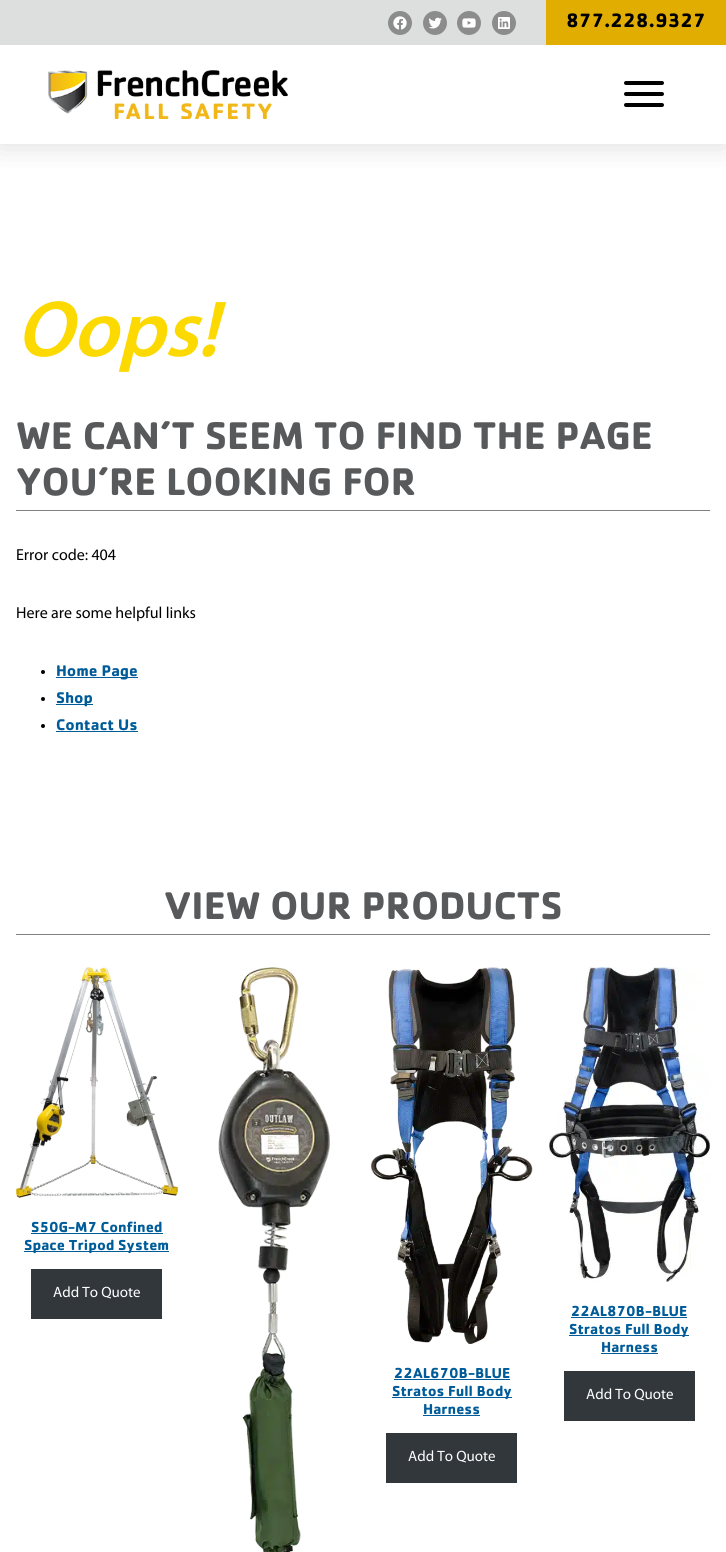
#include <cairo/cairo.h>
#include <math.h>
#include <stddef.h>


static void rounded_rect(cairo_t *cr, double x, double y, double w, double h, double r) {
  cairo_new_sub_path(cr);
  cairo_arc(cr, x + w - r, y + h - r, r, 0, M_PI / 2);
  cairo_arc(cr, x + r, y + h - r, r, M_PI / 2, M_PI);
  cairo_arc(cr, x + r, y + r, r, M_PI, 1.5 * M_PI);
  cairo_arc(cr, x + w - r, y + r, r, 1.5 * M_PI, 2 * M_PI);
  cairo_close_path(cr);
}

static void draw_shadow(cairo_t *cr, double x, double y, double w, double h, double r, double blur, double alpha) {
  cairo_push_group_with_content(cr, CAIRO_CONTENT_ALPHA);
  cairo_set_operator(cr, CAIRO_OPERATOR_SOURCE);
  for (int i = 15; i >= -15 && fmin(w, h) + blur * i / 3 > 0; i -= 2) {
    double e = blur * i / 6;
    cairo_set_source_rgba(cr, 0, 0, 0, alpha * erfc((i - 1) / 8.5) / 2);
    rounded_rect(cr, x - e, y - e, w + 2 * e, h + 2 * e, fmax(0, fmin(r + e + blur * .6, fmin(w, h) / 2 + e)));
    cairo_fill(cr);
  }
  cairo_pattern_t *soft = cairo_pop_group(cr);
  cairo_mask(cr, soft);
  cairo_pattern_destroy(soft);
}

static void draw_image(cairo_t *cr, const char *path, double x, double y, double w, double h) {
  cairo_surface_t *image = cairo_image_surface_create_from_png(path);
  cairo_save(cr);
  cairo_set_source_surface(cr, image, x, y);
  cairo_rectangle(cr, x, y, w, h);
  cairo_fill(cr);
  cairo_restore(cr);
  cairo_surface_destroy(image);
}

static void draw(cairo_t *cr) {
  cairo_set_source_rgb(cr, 1, 1, 1);
  cairo_paint(cr);
  cairo_save(cr);
  cairo_rectangle(cr, 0, 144, 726, 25);
  cairo_clip(cr);
  cairo_set_source_rgb(cr, 161 / 255.0, 161 / 255.0, 161 / 255.0);
  draw_shadow(cr, 0, 0, 726, 144, 0, 15, 0.4);
  cairo_restore(cr);
  cairo_set_source_rgb(cr, 221 / 255.0, 223 / 255.0, 223 / 255.0);
  cairo_rectangle(cr, 0, 0, 546, 45);
  cairo_fill(cr);
  cairo_set_source_rgb(cr, 140 / 255.0, 140 / 255.0, 140 / 255.0);
  cairo_arc(cr, 400, 23, 12, 0, 2 * M_PI);
  cairo_fill(cr);
  draw_image(cr, "images/1.png", 393, 16, 14, 14);
  cairo_arc(cr, 435, 23, 12, 0, 2 * M_PI);
  cairo_fill(cr);
  draw_image(cr, "images/2.png", 428, 17, 14, 12);
  cairo_arc(cr, 469, 23, 12, 0, 2 * M_PI);
  cairo_fill(cr);
  draw_image(cr, "images/3.png", 462, 18, 14, 10);
  cairo_arc(cr, 504, 23, 12, 0, 2 * M_PI);
  cairo_fill(cr);
  draw_image(cr, "images/4.png", 498, 17, 12, 12);
  cairo_set_source_rgb(cr, 224 / 255.0, 173 / 255.0, 0);
  cairo_rectangle(cr, 546, 0, 180, 45);
  cairo_fill(cr);
  draw_image(cr, "images/5.png", 48, 70, 240, 49);
  cairo_set_source_rgb(cr, 0, 0, 0);
  rounded_rect(cr, 624, 81, 40, 4, 2);
  cairo_fill(cr);
  rounded_rect(cr, 624, 92, 40, 4, 2);
  cairo_fill(cr);
  rounded_rect(cr, 624, 103, 40, 4, 2);
  cairo_fill(cr);
  cairo_set_source_rgb(cr, 128 / 255.0, 128 / 255.0, 128 / 255.0);
  cairo_rectangle(cr, 16, 510, 694, 1);
  cairo_fill(cr);
  cairo_set_source_rgb(cr, 0, 0, 0);
  cairo_arc(cr, 43, 672, 2, 0, 2 * M_PI);
  cairo_fill(cr);
  cairo_set_source_rgb(cr, 0, 92 / 255.0, 153 / 255.0);
  cairo_rectangle(cr, 56, 677, 82, 1);
  cairo_fill(cr);
  cairo_set_source_rgb(cr, 0, 0, 0);
  cairo_arc(cr, 43, 699, 2, 0, 2 * M_PI);
  cairo_fill(cr);
  cairo_set_source_rgb(cr, 0, 92 / 255.0, 153 / 255.0);
  cairo_rectangle(cr, 56, 704, 37, 1);
  cairo_fill(cr);
  cairo_set_source_rgb(cr, 0, 0, 0);
  cairo_arc(cr, 43, 726, 2, 0, 2 * M_PI);
  cairo_fill(cr);
  cairo_set_source_rgb(cr, 0, 92 / 255.0, 153 / 255.0);
  cairo_rectangle(cr, 56, 731, 82, 1);
  cairo_fill(cr);
  cairo_set_source_rgb(cr, 128 / 255.0, 128 / 255.0, 128 / 255.0);
  cairo_rectangle(cr, 16, 934, 694, 1);
  cairo_fill(cr);
  draw_image(cr, "images/6.png", 16, 967, 162, 231);
  cairo_set_source_rgb(cr, 0, 92 / 255.0, 153 / 255.0);
  cairo_rectangle(cr, 31, 1233, 132, 1);
  cairo_fill(cr);
  cairo_rectangle(cr, 24, 1251, 145, 1);
  cairo_fill(cr);
  cairo_set_source_rgb(cr, 50 / 255.0, 55 / 255.0, 60 / 255.0);
  cairo_rectangle(cr, 31, 1269, 131, 50);
  cairo_fill(cr);
  draw_image(cr, "images/7.png", 218, 967, 112, 585);
  draw_image(cr, "images/8.png", 549, 967, 161, 315);
  cairo_set_source_rgb(cr, 0, 92 / 255.0, 153 / 255.0);
  cairo_rectangle(cr, 571, 1317, 116, 1);
  cairo_fill(cr);
  cairo_rectangle(cr, 569, 1335, 120, 1);
  cairo_fill(cr);
  cairo_rectangle(cr, 601, 1353, 57, 1);
  cairo_fill(cr);
  cairo_set_source_rgb(cr, 50 / 255.0, 55 / 255.0, 60 / 255.0);
  cairo_rectangle(cr, 564, 1371, 131, 50);
  cairo_fill(cr);
  draw_image(cr, "images/9.png", 371, 967, 162, 377);
  cairo_set_source_rgb(cr, 0, 92 / 255.0, 153 / 255.0);
  cairo_rectangle(cr, 394, 1379, 116, 1);
  cairo_fill(cr);
  cairo_rectangle(cr, 392, 1397, 120, 1);
  cairo_fill(cr);
  cairo_rectangle(cr, 423, 1415, 57, 1);
  cairo_fill(cr);
  cairo_set_source_rgb(cr, 50 / 255.0, 55 / 255.0, 60 / 255.0);
  cairo_rectangle(cr, 386, 1433, 131, 50);
  cairo_fill(cr);
  cairo_select_font_face(cr, "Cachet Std", CAIRO_FONT_SLANT_NORMAL, CAIRO_FONT_WEIGHT_BOLD);
  cairo_set_font_size(cr, 20);
  cairo_set_source_rgb(cr, 0, 0, 0);
  cairo_move_to(cr, 566, 27);
  cairo_show_text(cr, "877.228.9327");
  cairo_select_font_face(cr, "Myriad SemiBold", CAIRO_FONT_SLANT_ITALIC, CAIRO_FONT_WEIGHT_NORMAL);
  cairo_set_font_size(cr, 80);
  cairo_set_source_rgb(cr, 253 / 255.0, 217 / 255.0, 2 / 255.0);
  cairo_move_to(cr, 16, 356);
  cairo_show_text(cr, "Oops!");
  cairo_select_font_face(cr, "Cachet Std", CAIRO_FONT_SLANT_NORMAL, CAIRO_FONT_WEIGHT_BOLD);
  cairo_set_font_size(cr, 40);
  cairo_set_source_rgb(cr, 88 / 255.0, 89 / 255.0, 91 / 255.0);
  cairo_move_to(cr, 16, 449);
  cairo_show_text(cr, "WE CAN’T SEEM TO FIND THE PAGE");
  cairo_move_to(cr, 16, 495);
  cairo_show_text(cr, "YOU’RE LOOKING FOR");
  cairo_select_font_face(cr, "Myriad", CAIRO_FONT_SLANT_NORMAL, CAIRO_FONT_WEIGHT_NORMAL);
  cairo_set_font_size(cr, 16);
  cairo_set_source_rgb(cr, 0, 0, 0);
  cairo_move_to(cr, 16, 560);
  cairo_show_text(cr, "Error code: 404");
  cairo_move_to(cr, 16, 618);
  cairo_show_text(cr, "Here are some helpful links");
  cairo_select_font_face(cr, "Cachet Std", CAIRO_FONT_SLANT_NORMAL, CAIRO_FONT_WEIGHT_BOLD);
  cairo_set_source_rgb(cr, 0, 92 / 255.0, 153 / 255.0);
  cairo_move_to(cr, 56, 676);
  cairo_show_text(cr, "Home Page");
  cairo_move_to(cr, 56, 703);
  cairo_show_text(cr, "Shop");
  cairo_move_to(cr, 56, 730);
  cairo_show_text(cr, "Contact Us");
  cairo_set_font_size(cr, 40);
  cairo_set_source_rgb(cr, 88 / 255.0, 89 / 255.0, 91 / 255.0);
  cairo_move_to(cr, 164, 919);
  cairo_show_text(cr, "VIEW OUR PRODUCTS");
  cairo_set_font_size(cr, 15);
  cairo_set_source_rgb(cr, 0, 92 / 255.0, 153 / 255.0);
  cairo_move_to(cr, 31, 1232);
  cairo_show_text(cr, "S50G-M7 Confined");
  cairo_move_to(cr, 24, 1250);
  cairo_show_text(cr, "Space Tripod System");
  cairo_select_font_face(cr, "Myriad", CAIRO_FONT_SLANT_NORMAL, CAIRO_FONT_WEIGHT_NORMAL);
  cairo_set_source_rgb(cr, 1, 1, 1);
  cairo_move_to(cr, 53, 1297);
  cairo_show_text(cr, "Add To Quote");
  cairo_select_font_face(cr, "Cachet Std", CAIRO_FONT_SLANT_NORMAL, CAIRO_FONT_WEIGHT_BOLD);
  cairo_set_source_rgb(cr, 0, 92 / 255.0, 153 / 255.0);
  cairo_move_to(cr, 571, 1316);
  cairo_show_text(cr, "22AL870B-BLUE");
  cairo_move_to(cr, 569, 1334);
  cairo_show_text(cr, "Stratos Full Body");
  cairo_move_to(cr, 601, 1352);
  cairo_show_text(cr, "Harness");
  cairo_select_font_face(cr, "Myriad", CAIRO_FONT_SLANT_NORMAL, CAIRO_FONT_WEIGHT_NORMAL);
  cairo_set_source_rgb(cr, 1, 1, 1);
  cairo_move_to(cr, 586, 1399);
  cairo_show_text(cr, "Add To Quote");
  cairo_select_font_face(cr, "Cachet Std", CAIRO_FONT_SLANT_NORMAL, CAIRO_FONT_WEIGHT_BOLD);
  cairo_set_source_rgb(cr, 0, 92 / 255.0, 153 / 255.0);
  cairo_move_to(cr, 394, 1378);
  cairo_show_text(cr, "22AL670B-BLUE");
  cairo_move_to(cr, 392, 1396);
  cairo_show_text(cr, "Stratos Full Body");
  cairo_move_to(cr, 423, 1414);
  cairo_show_text(cr, "Harness");
  cairo_select_font_face(cr, "Myriad", CAIRO_FONT_SLANT_NORMAL, CAIRO_FONT_WEIGHT_NORMAL);
  cairo_set_source_rgb(cr, 1, 1, 1);
  cairo_move_to(cr, 408, 1461);
  cairo_show_text(cr, "Add To Quote");
}

int main(void) {
  cairo_surface_t *surface = cairo_image_surface_create(CAIRO_FORMAT_RGB24, 726, 1552);
  cairo_t *cr = cairo_create(surface);
  cairo_font_options_t *options = cairo_font_options_create();
  cairo_font_options_set_hint_metrics(options, CAIRO_HINT_METRICS_OFF);
  cairo_font_options_set_hint_style(options, CAIRO_HINT_STYLE_NONE);
  cairo_set_font_options(cr, options);
  cairo_set_miter_limit(cr, 4);
  draw(cr);
  cairo_surface_write_to_png(surface, "out.png");
  cairo_font_options_destroy(options);
  cairo_destroy(cr);
  cairo_surface_destroy(surface);
  return 0;
}
